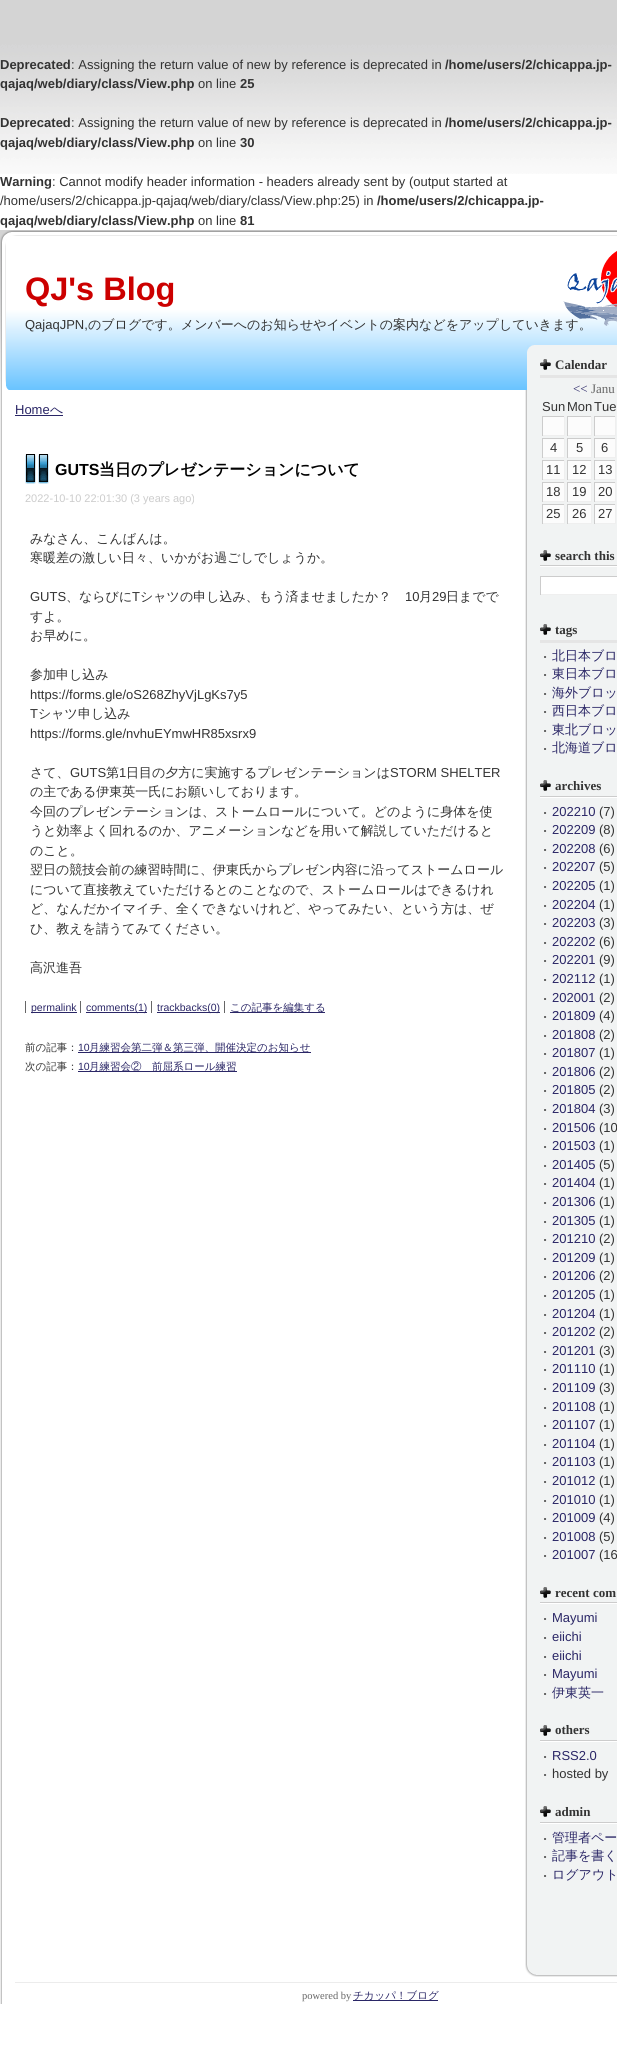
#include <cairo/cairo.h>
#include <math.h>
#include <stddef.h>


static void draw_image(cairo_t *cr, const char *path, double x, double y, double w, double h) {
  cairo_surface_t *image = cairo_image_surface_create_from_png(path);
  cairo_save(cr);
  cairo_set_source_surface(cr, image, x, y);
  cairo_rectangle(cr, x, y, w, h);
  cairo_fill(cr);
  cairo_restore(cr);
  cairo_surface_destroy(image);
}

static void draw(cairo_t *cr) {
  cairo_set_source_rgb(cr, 1, 1, 1);
  cairo_paint(cr);
  draw_image(cr, "images/1.png", 0, 0, 617, 174);
  draw_image(cr, "images/2.png", 0, 390, 2, 1614);
  draw_image(cr, "images/3.png", 0, 230, 617, 160);
  cairo_set_source_rgb(cr, 42 / 255.0, 38 / 255.0, 102 / 255.0);
  cairo_rectangle(cr, 15, 415, 48, 1);
  cairo_fill(cr);
  draw_image(cr, "images/4.png", 25, 454, 24, 30);
  cairo_set_source_rgb(cr, 102 / 255.0, 102 / 255.0, 102 / 255.0);
  cairo_rectangle(cr, 25, 1001, 1, 12);
  cairo_fill(cr);
  cairo_set_source_rgb(cr, 42 / 255.0, 38 / 255.0, 102 / 255.0);
  cairo_rectangle(cr, 31, 1012, 46, 1);
  cairo_fill(cr);
  cairo_set_source_rgb(cr, 102 / 255.0, 102 / 255.0, 102 / 255.0);
  cairo_rectangle(cr, 80, 1001, 1, 12);
  cairo_fill(cr);
  cairo_set_source_rgb(cr, 42 / 255.0, 38 / 255.0, 102 / 255.0);
  cairo_rectangle(cr, 86, 1012, 61, 1);
  cairo_fill(cr);
  cairo_set_source_rgb(cr, 102 / 255.0, 102 / 255.0, 102 / 255.0);
  cairo_rectangle(cr, 151, 1001, 1, 12);
  cairo_fill(cr);
  cairo_set_source_rgb(cr, 42 / 255.0, 38 / 255.0, 102 / 255.0);
  cairo_rectangle(cr, 157, 1012, 63, 1);
  cairo_fill(cr);
  cairo_set_source_rgb(cr, 102 / 255.0, 102 / 255.0, 102 / 255.0);
  cairo_rectangle(cr, 224, 1001, 1, 12);
  cairo_fill(cr);
  cairo_set_source_rgb(cr, 42 / 255.0, 38 / 255.0, 102 / 255.0);
  cairo_rectangle(cr, 230, 1012, 95, 1);
  cairo_fill(cr);
  cairo_rectangle(cr, 78, 1052, 233, 1);
  cairo_fill(cr);
  cairo_rectangle(cr, 78, 1071, 159, 1);
  cairo_fill(cr);
  draw_image(cr, "images/5.png", 525, 390, 92, 1575);
  draw_image(cr, "images/6.png", 527, 345, 90, 45);
  draw_image(cr, "images/7.png", 540, 359, 11, 11);
  cairo_set_source_rgb(cr, 229 / 255.0, 229 / 255.0, 229 / 255.0);
  cairo_rectangle(cr, 540, 375, 77, 3);
  cairo_fill(cr);
  cairo_set_source_rgb(cr, 252 / 255.0, 252 / 255.0, 252 / 255.0);
  cairo_rectangle(cr, 543, 417, 21, 18);
  cairo_fill(cr);
  cairo_set_source_rgb(cr, 204 / 255.0, 204 / 255.0, 204 / 255.0);
  cairo_rectangle(cr, 542, 416, 23, 1);
  cairo_fill(cr);
  cairo_set_source_rgb(cr, 239 / 255.0, 239 / 255.0, 239 / 255.0);
  cairo_rectangle(cr, 564, 416, 1, 20);
  cairo_fill(cr);
  cairo_rectangle(cr, 542, 435, 23, 1);
  cairo_fill(cr);
  cairo_set_source_rgb(cr, 204 / 255.0, 204 / 255.0, 204 / 255.0);
  cairo_rectangle(cr, 542, 416, 1, 20);
  cairo_fill(cr);
  cairo_set_source_rgb(cr, 252 / 255.0, 252 / 255.0, 252 / 255.0);
  cairo_rectangle(cr, 568, 417, 23, 18);
  cairo_fill(cr);
  cairo_set_source_rgb(cr, 204 / 255.0, 204 / 255.0, 204 / 255.0);
  cairo_rectangle(cr, 567, 416, 25, 1);
  cairo_fill(cr);
  cairo_set_source_rgb(cr, 239 / 255.0, 239 / 255.0, 239 / 255.0);
  cairo_rectangle(cr, 591, 416, 1, 20);
  cairo_fill(cr);
  cairo_rectangle(cr, 567, 435, 25, 1);
  cairo_fill(cr);
  cairo_set_source_rgb(cr, 204 / 255.0, 204 / 255.0, 204 / 255.0);
  cairo_rectangle(cr, 567, 416, 1, 20);
  cairo_fill(cr);
  cairo_set_source_rgb(cr, 252 / 255.0, 252 / 255.0, 252 / 255.0);
  cairo_rectangle(cr, 595, 417, 20, 18);
  cairo_fill(cr);
  cairo_set_source_rgb(cr, 204 / 255.0, 204 / 255.0, 204 / 255.0);
  cairo_rectangle(cr, 594, 416, 22, 1);
  cairo_fill(cr);
  cairo_set_source_rgb(cr, 239 / 255.0, 239 / 255.0, 239 / 255.0);
  cairo_rectangle(cr, 615, 416, 1, 20);
  cairo_fill(cr);
  cairo_rectangle(cr, 594, 435, 22, 1);
  cairo_fill(cr);
  cairo_set_source_rgb(cr, 204 / 255.0, 204 / 255.0, 204 / 255.0);
  cairo_rectangle(cr, 594, 416, 1, 20);
  cairo_fill(cr);
  cairo_set_source_rgb(cr, 252 / 255.0, 252 / 255.0, 252 / 255.0);
  cairo_rectangle(cr, 543, 439, 21, 18);
  cairo_fill(cr);
  cairo_set_source_rgb(cr, 204 / 255.0, 204 / 255.0, 204 / 255.0);
  cairo_rectangle(cr, 542, 438, 23, 1);
  cairo_fill(cr);
  cairo_set_source_rgb(cr, 239 / 255.0, 239 / 255.0, 239 / 255.0);
  cairo_rectangle(cr, 564, 438, 1, 20);
  cairo_fill(cr);
  cairo_rectangle(cr, 542, 457, 23, 1);
  cairo_fill(cr);
  cairo_set_source_rgb(cr, 204 / 255.0, 204 / 255.0, 204 / 255.0);
  cairo_rectangle(cr, 542, 438, 1, 20);
  cairo_fill(cr);
  cairo_set_source_rgb(cr, 252 / 255.0, 252 / 255.0, 252 / 255.0);
  cairo_rectangle(cr, 568, 439, 23, 18);
  cairo_fill(cr);
  cairo_set_source_rgb(cr, 204 / 255.0, 204 / 255.0, 204 / 255.0);
  cairo_rectangle(cr, 567, 438, 25, 1);
  cairo_fill(cr);
  cairo_set_source_rgb(cr, 239 / 255.0, 239 / 255.0, 239 / 255.0);
  cairo_rectangle(cr, 591, 438, 1, 20);
  cairo_fill(cr);
  cairo_rectangle(cr, 567, 457, 25, 1);
  cairo_fill(cr);
  cairo_set_source_rgb(cr, 204 / 255.0, 204 / 255.0, 204 / 255.0);
  cairo_rectangle(cr, 567, 438, 1, 20);
  cairo_fill(cr);
  cairo_set_source_rgb(cr, 252 / 255.0, 252 / 255.0, 252 / 255.0);
  cairo_rectangle(cr, 595, 439, 20, 18);
  cairo_fill(cr);
  cairo_set_source_rgb(cr, 204 / 255.0, 204 / 255.0, 204 / 255.0);
  cairo_rectangle(cr, 594, 438, 22, 1);
  cairo_fill(cr);
  cairo_set_source_rgb(cr, 239 / 255.0, 239 / 255.0, 239 / 255.0);
  cairo_rectangle(cr, 615, 438, 1, 20);
  cairo_fill(cr);
  cairo_rectangle(cr, 594, 457, 22, 1);
  cairo_fill(cr);
  cairo_set_source_rgb(cr, 204 / 255.0, 204 / 255.0, 204 / 255.0);
  cairo_rectangle(cr, 594, 438, 1, 20);
  cairo_fill(cr);
  cairo_set_source_rgb(cr, 252 / 255.0, 252 / 255.0, 252 / 255.0);
  cairo_rectangle(cr, 543, 461, 21, 18);
  cairo_fill(cr);
  cairo_set_source_rgb(cr, 204 / 255.0, 204 / 255.0, 204 / 255.0);
  cairo_rectangle(cr, 542, 460, 23, 1);
  cairo_fill(cr);
  cairo_set_source_rgb(cr, 239 / 255.0, 239 / 255.0, 239 / 255.0);
  cairo_rectangle(cr, 564, 460, 1, 20);
  cairo_fill(cr);
  cairo_rectangle(cr, 542, 479, 23, 1);
  cairo_fill(cr);
  cairo_set_source_rgb(cr, 204 / 255.0, 204 / 255.0, 204 / 255.0);
  cairo_rectangle(cr, 542, 460, 1, 20);
  cairo_fill(cr);
  cairo_set_source_rgb(cr, 252 / 255.0, 252 / 255.0, 252 / 255.0);
  cairo_rectangle(cr, 568, 461, 23, 18);
  cairo_fill(cr);
  cairo_set_source_rgb(cr, 204 / 255.0, 204 / 255.0, 204 / 255.0);
  cairo_rectangle(cr, 567, 460, 25, 1);
  cairo_fill(cr);
  cairo_set_source_rgb(cr, 239 / 255.0, 239 / 255.0, 239 / 255.0);
  cairo_rectangle(cr, 591, 460, 1, 20);
  cairo_fill(cr);
  cairo_rectangle(cr, 567, 479, 25, 1);
  cairo_fill(cr);
  cairo_set_source_rgb(cr, 204 / 255.0, 204 / 255.0, 204 / 255.0);
  cairo_rectangle(cr, 567, 460, 1, 20);
  cairo_fill(cr);
  cairo_set_source_rgb(cr, 252 / 255.0, 252 / 255.0, 252 / 255.0);
  cairo_rectangle(cr, 595, 461, 20, 18);
  cairo_fill(cr);
  cairo_set_source_rgb(cr, 204 / 255.0, 204 / 255.0, 204 / 255.0);
  cairo_rectangle(cr, 594, 460, 22, 1);
  cairo_fill(cr);
  cairo_set_source_rgb(cr, 239 / 255.0, 239 / 255.0, 239 / 255.0);
  cairo_rectangle(cr, 615, 460, 1, 20);
  cairo_fill(cr);
  cairo_rectangle(cr, 594, 479, 22, 1);
  cairo_fill(cr);
  cairo_set_source_rgb(cr, 204 / 255.0, 204 / 255.0, 204 / 255.0);
  cairo_rectangle(cr, 594, 460, 1, 20);
  cairo_fill(cr);
  cairo_set_source_rgb(cr, 252 / 255.0, 252 / 255.0, 252 / 255.0);
  cairo_rectangle(cr, 543, 483, 21, 18);
  cairo_fill(cr);
  cairo_set_source_rgb(cr, 204 / 255.0, 204 / 255.0, 204 / 255.0);
  cairo_rectangle(cr, 542, 482, 23, 1);
  cairo_fill(cr);
  cairo_set_source_rgb(cr, 239 / 255.0, 239 / 255.0, 239 / 255.0);
  cairo_rectangle(cr, 564, 482, 1, 20);
  cairo_fill(cr);
  cairo_rectangle(cr, 542, 501, 23, 1);
  cairo_fill(cr);
  cairo_set_source_rgb(cr, 204 / 255.0, 204 / 255.0, 204 / 255.0);
  cairo_rectangle(cr, 542, 482, 1, 20);
  cairo_fill(cr);
  cairo_set_source_rgb(cr, 252 / 255.0, 252 / 255.0, 252 / 255.0);
  cairo_rectangle(cr, 568, 483, 23, 18);
  cairo_fill(cr);
  cairo_set_source_rgb(cr, 204 / 255.0, 204 / 255.0, 204 / 255.0);
  cairo_rectangle(cr, 567, 482, 25, 1);
  cairo_fill(cr);
  cairo_set_source_rgb(cr, 239 / 255.0, 239 / 255.0, 239 / 255.0);
  cairo_rectangle(cr, 591, 482, 1, 20);
  cairo_fill(cr);
  cairo_rectangle(cr, 567, 501, 25, 1);
  cairo_fill(cr);
  cairo_set_source_rgb(cr, 204 / 255.0, 204 / 255.0, 204 / 255.0);
  cairo_rectangle(cr, 567, 482, 1, 20);
  cairo_fill(cr);
  cairo_set_source_rgb(cr, 252 / 255.0, 252 / 255.0, 252 / 255.0);
  cairo_rectangle(cr, 595, 483, 20, 18);
  cairo_fill(cr);
  cairo_set_source_rgb(cr, 204 / 255.0, 204 / 255.0, 204 / 255.0);
  cairo_rectangle(cr, 594, 482, 22, 1);
  cairo_fill(cr);
  cairo_set_source_rgb(cr, 239 / 255.0, 239 / 255.0, 239 / 255.0);
  cairo_rectangle(cr, 615, 482, 1, 20);
  cairo_fill(cr);
  cairo_rectangle(cr, 594, 501, 22, 1);
  cairo_fill(cr);
  cairo_set_source_rgb(cr, 204 / 255.0, 204 / 255.0, 204 / 255.0);
  cairo_rectangle(cr, 594, 482, 1, 20);
  cairo_fill(cr);
  cairo_set_source_rgb(cr, 252 / 255.0, 252 / 255.0, 252 / 255.0);
  cairo_rectangle(cr, 543, 505, 21, 18);
  cairo_fill(cr);
  cairo_set_source_rgb(cr, 204 / 255.0, 204 / 255.0, 204 / 255.0);
  cairo_rectangle(cr, 542, 504, 23, 1);
  cairo_fill(cr);
  cairo_set_source_rgb(cr, 239 / 255.0, 239 / 255.0, 239 / 255.0);
  cairo_rectangle(cr, 564, 504, 1, 20);
  cairo_fill(cr);
  cairo_rectangle(cr, 542, 523, 23, 1);
  cairo_fill(cr);
  cairo_set_source_rgb(cr, 204 / 255.0, 204 / 255.0, 204 / 255.0);
  cairo_rectangle(cr, 542, 504, 1, 20);
  cairo_fill(cr);
  cairo_set_source_rgb(cr, 252 / 255.0, 252 / 255.0, 252 / 255.0);
  cairo_rectangle(cr, 568, 505, 23, 18);
  cairo_fill(cr);
  cairo_set_source_rgb(cr, 204 / 255.0, 204 / 255.0, 204 / 255.0);
  cairo_rectangle(cr, 567, 504, 25, 1);
  cairo_fill(cr);
  cairo_set_source_rgb(cr, 239 / 255.0, 239 / 255.0, 239 / 255.0);
  cairo_rectangle(cr, 591, 504, 1, 20);
  cairo_fill(cr);
  cairo_rectangle(cr, 567, 523, 25, 1);
  cairo_fill(cr);
  cairo_set_source_rgb(cr, 204 / 255.0, 204 / 255.0, 204 / 255.0);
  cairo_rectangle(cr, 567, 504, 1, 20);
  cairo_fill(cr);
  cairo_set_source_rgb(cr, 252 / 255.0, 252 / 255.0, 252 / 255.0);
  cairo_rectangle(cr, 595, 505, 20, 18);
  cairo_fill(cr);
  cairo_set_source_rgb(cr, 204 / 255.0, 204 / 255.0, 204 / 255.0);
  cairo_rectangle(cr, 594, 504, 22, 1);
  cairo_fill(cr);
  cairo_set_source_rgb(cr, 239 / 255.0, 239 / 255.0, 239 / 255.0);
  cairo_rectangle(cr, 615, 504, 1, 20);
  cairo_fill(cr);
  cairo_rectangle(cr, 594, 523, 22, 1);
  cairo_fill(cr);
  cairo_set_source_rgb(cr, 204 / 255.0, 204 / 255.0, 204 / 255.0);
  cairo_rectangle(cr, 594, 504, 1, 20);
  cairo_fill(cr);
  draw_image(cr, "images/7.png", 540, 550, 11, 11);
  draw_image(cr, "images/8.png", 540, 565, 77, 2);
  cairo_set_source_rgb(cr, 1, 1, 1);
  cairo_rectangle(cr, 541, 577, 76, 17);
  cairo_fill(cr);
  cairo_set_source_rgb(cr, 204 / 255.0, 204 / 255.0, 204 / 255.0);
  cairo_rectangle(cr, 540, 576, 77, 1);
  cairo_fill(cr);
  cairo_set_source_rgb(cr, 239 / 255.0, 239 / 255.0, 239 / 255.0);
  cairo_rectangle(cr, 540, 594, 77, 1);
  cairo_fill(cr);
  cairo_set_source_rgb(cr, 204 / 255.0, 204 / 255.0, 204 / 255.0);
  cairo_rectangle(cr, 540, 576, 1, 19);
  cairo_fill(cr);
  draw_image(cr, "images/7.png", 540, 624, 11, 11);
  cairo_set_source_rgb(cr, 229 / 255.0, 229 / 255.0, 229 / 255.0);
  cairo_rectangle(cr, 540, 640, 77, 3);
  cairo_fill(cr);
  draw_image(cr, "images/9.png", 544, 656, 3, 2);
  draw_image(cr, "images/9.png", 544, 674, 3, 2);
  draw_image(cr, "images/9.png", 544, 693, 3, 2);
  draw_image(cr, "images/9.png", 544, 711, 3, 2);
  draw_image(cr, "images/9.png", 544, 730, 3, 2);
  draw_image(cr, "images/9.png", 544, 748, 3, 2);
  draw_image(cr, "images/7.png", 540, 780, 11, 11);
  draw_image(cr, "images/8.png", 540, 796, 77, 2);
  draw_image(cr, "images/9.png", 544, 812, 3, 2);
  draw_image(cr, "images/9.png", 544, 830, 3, 2);
  draw_image(cr, "images/9.png", 544, 849, 3, 2);
  draw_image(cr, "images/9.png", 544, 867, 3, 2);
  draw_image(cr, "images/9.png", 544, 886, 3, 2);
  draw_image(cr, "images/9.png", 544, 905, 3, 2);
  draw_image(cr, "images/9.png", 544, 923, 3, 2);
  draw_image(cr, "images/9.png", 544, 942, 3, 2);
  draw_image(cr, "images/9.png", 544, 960, 3, 2);
  draw_image(cr, "images/9.png", 544, 979, 3, 2);
  draw_image(cr, "images/9.png", 544, 998, 3, 2);
  draw_image(cr, "images/9.png", 544, 1016, 3, 2);
  draw_image(cr, "images/9.png", 544, 1035, 3, 2);
  draw_image(cr, "images/9.png", 544, 1053, 3, 2);
  draw_image(cr, "images/9.png", 544, 1072, 3, 2);
  draw_image(cr, "images/9.png", 544, 1090, 3, 2);
  draw_image(cr, "images/9.png", 544, 1109, 3, 2);
  draw_image(cr, "images/9.png", 544, 1128, 3, 2);
  draw_image(cr, "images/9.png", 544, 1146, 3, 2);
  draw_image(cr, "images/9.png", 544, 1165, 3, 2);
  draw_image(cr, "images/9.png", 544, 1183, 3, 2);
  draw_image(cr, "images/9.png", 544, 1202, 3, 2);
  draw_image(cr, "images/9.png", 544, 1221, 3, 2);
  draw_image(cr, "images/9.png", 544, 1239, 3, 2);
  draw_image(cr, "images/9.png", 544, 1258, 3, 2);
  draw_image(cr, "images/9.png", 544, 1276, 3, 2);
  draw_image(cr, "images/9.png", 544, 1295, 3, 2);
  draw_image(cr, "images/9.png", 544, 1314, 3, 2);
  draw_image(cr, "images/9.png", 544, 1332, 3, 2);
  draw_image(cr, "images/9.png", 544, 1351, 3, 2);
  draw_image(cr, "images/9.png", 544, 1369, 3, 2);
  draw_image(cr, "images/9.png", 544, 1388, 3, 2);
  draw_image(cr, "images/9.png", 544, 1407, 3, 2);
  draw_image(cr, "images/9.png", 544, 1425, 3, 2);
  draw_image(cr, "images/9.png", 544, 1444, 3, 2);
  draw_image(cr, "images/9.png", 544, 1462, 3, 2);
  draw_image(cr, "images/9.png", 544, 1481, 3, 2);
  draw_image(cr, "images/9.png", 544, 1500, 3, 2);
  draw_image(cr, "images/9.png", 544, 1518, 3, 2);
  draw_image(cr, "images/9.png", 544, 1537, 3, 2);
  draw_image(cr, "images/9.png", 544, 1555, 3, 2);
  draw_image(cr, "images/7.png", 540, 1587, 11, 11);
  draw_image(cr, "images/8.png", 540, 1602, 77, 2);
  draw_image(cr, "images/9.png", 544, 1618, 3, 2);
  draw_image(cr, "images/9.png", 544, 1637, 3, 2);
  draw_image(cr, "images/9.png", 544, 1656, 3, 2);
  draw_image(cr, "images/9.png", 544, 1674, 3, 2);
  draw_image(cr, "images/9.png", 544, 1693, 3, 2);
  draw_image(cr, "images/7.png", 540, 1725, 11, 11);
  draw_image(cr, "images/8.png", 540, 1740, 77, 2);
  draw_image(cr, "images/9.png", 544, 1756, 3, 2);
  draw_image(cr, "images/9.png", 544, 1774, 3, 2);
  draw_image(cr, "images/7.png", 540, 1806, 11, 11);
  draw_image(cr, "images/8.png", 540, 1822, 77, 2);
  draw_image(cr, "images/9.png", 544, 1838, 3, 2);
  draw_image(cr, "images/9.png", 544, 1856, 3, 2);
  draw_image(cr, "images/9.png", 544, 1875, 3, 2);
  draw_image(cr, "images/10.png", 525, 1965, 92, 12);
  cairo_set_source_rgb(cr, 236 / 255.0, 236 / 255.0, 236 / 255.0);
  cairo_rectangle(cr, 15, 1982, 602, 1);
  cairo_fill(cr);
  cairo_set_source_rgb(cr, 42 / 255.0, 38 / 255.0, 102 / 255.0);
  cairo_rectangle(cr, 353, 2000, 85, 1);
  cairo_fill(cr);
  cairo_select_font_face(cr, "Liberation Sans", CAIRO_FONT_SLANT_NORMAL, CAIRO_FONT_WEIGHT_BOLD);
  cairo_set_font_size(cr, 13);
  cairo_set_source_rgb(cr, 51 / 255.0, 51 / 255.0, 51 / 255.0);
  cairo_move_to(cr, 0, 69);
  cairo_show_text(cr, "Deprecated");
  cairo_select_font_face(cr, "Liberation Sans", CAIRO_FONT_SLANT_NORMAL, CAIRO_FONT_WEIGHT_NORMAL);
  cairo_move_to(cr, 71, 69);
  cairo_show_text(cr, ": Assigning the return value of new by reference is deprecated in");
  cairo_select_font_face(cr, "Liberation Sans", CAIRO_FONT_SLANT_NORMAL, CAIRO_FONT_WEIGHT_BOLD);
  cairo_move_to(cr, 445, 69);
  cairo_show_text(cr, "/home/users/2/chicappa.jp-");
  cairo_move_to(cr, 0, 88);
  cairo_show_text(cr, "qajaq/web/diary/class/View.php");
  cairo_select_font_face(cr, "Liberation Sans", CAIRO_FONT_SLANT_NORMAL, CAIRO_FONT_WEIGHT_NORMAL);
  cairo_move_to(cr, 198, 88);
  cairo_show_text(cr, "on line");
  cairo_select_font_face(cr, "Liberation Sans", CAIRO_FONT_SLANT_NORMAL, CAIRO_FONT_WEIGHT_BOLD);
  cairo_move_to(cr, 240, 88);
  cairo_show_text(cr, "25");
  cairo_move_to(cr, 0, 127);
  cairo_show_text(cr, "Deprecated");
  cairo_select_font_face(cr, "Liberation Sans", CAIRO_FONT_SLANT_NORMAL, CAIRO_FONT_WEIGHT_NORMAL);
  cairo_move_to(cr, 71, 127);
  cairo_show_text(cr, ": Assigning the return value of new by reference is deprecated in");
  cairo_select_font_face(cr, "Liberation Sans", CAIRO_FONT_SLANT_NORMAL, CAIRO_FONT_WEIGHT_BOLD);
  cairo_move_to(cr, 445, 127);
  cairo_show_text(cr, "/home/users/2/chicappa.jp-");
  cairo_move_to(cr, 0, 147);
  cairo_show_text(cr, "qajaq/web/diary/class/View.php");
  cairo_select_font_face(cr, "Liberation Sans", CAIRO_FONT_SLANT_NORMAL, CAIRO_FONT_WEIGHT_NORMAL);
  cairo_move_to(cr, 198, 147);
  cairo_show_text(cr, "on line");
  cairo_select_font_face(cr, "Liberation Sans", CAIRO_FONT_SLANT_NORMAL, CAIRO_FONT_WEIGHT_BOLD);
  cairo_move_to(cr, 240, 147);
  cairo_show_text(cr, "30");
  cairo_move_to(cr, 0, 186);
  cairo_show_text(cr, "Warning");
  cairo_select_font_face(cr, "Liberation Sans", CAIRO_FONT_SLANT_NORMAL, CAIRO_FONT_WEIGHT_NORMAL);
  cairo_move_to(cr, 52, 186);
  cairo_show_text(cr, ": Cannot modify header information - headers already sent by (output started at");
  cairo_move_to(cr, 0, 205);
  cairo_show_text(cr, "/home/users/2/chicappa.jp-qajaq/web/diary/class/View.php:25) in");
  cairo_select_font_face(cr, "Liberation Sans", CAIRO_FONT_SLANT_NORMAL, CAIRO_FONT_WEIGHT_BOLD);
  cairo_move_to(cr, 377, 205);
  cairo_show_text(cr, "/home/users/2/chicappa.jp-");
  cairo_move_to(cr, 0, 225);
  cairo_show_text(cr, "qajaq/web/diary/class/View.php");
  cairo_select_font_face(cr, "Liberation Sans", CAIRO_FONT_SLANT_NORMAL, CAIRO_FONT_WEIGHT_NORMAL);
  cairo_move_to(cr, 198, 225);
  cairo_show_text(cr, "on line");
  cairo_select_font_face(cr, "Liberation Sans", CAIRO_FONT_SLANT_NORMAL, CAIRO_FONT_WEIGHT_BOLD);
  cairo_move_to(cr, 240, 225);
  cairo_show_text(cr, "81");
  cairo_set_font_size(cr, 32.5);
  cairo_set_source_rgb(cr, 204 / 255.0, 0, 0);
  cairo_move_to(cr, 25, 300);
  cairo_show_text(cr, "QJ's Blog");
  cairo_select_font_face(cr, "Liberation Sans", CAIRO_FONT_SLANT_NORMAL, CAIRO_FONT_WEIGHT_NORMAL);
  cairo_set_font_size(cr, 13);
  cairo_set_source_rgb(cr, 51 / 255.0, 51 / 255.0, 51 / 255.0);
  cairo_move_to(cr, 25, 329);
  cairo_show_text(cr, "QajaqJPN,");
  cairo_select_font_face(cr, "WenQuanYi Zen Hei Medium", CAIRO_FONT_SLANT_NORMAL, CAIRO_FONT_WEIGHT_NORMAL);
  cairo_move_to(cr, 88, 329);
  cairo_show_text(cr, "のブログです。メンバーへのお知らせやイベントの案内などをアップしていきます。");
  cairo_select_font_face(cr, "Liberation Sans", CAIRO_FONT_SLANT_NORMAL, CAIRO_FONT_WEIGHT_NORMAL);
  cairo_set_source_rgb(cr, 42 / 255.0, 38 / 255.0, 102 / 255.0);
  cairo_move_to(cr, 15, 414);
  cairo_show_text(cr, "Home");
  cairo_select_font_face(cr, "WenQuanYi Zen Hei Medium", CAIRO_FONT_SLANT_NORMAL, CAIRO_FONT_WEIGHT_NORMAL);
  cairo_move_to(cr, 50, 414);
  cairo_show_text(cr, "へ");
  cairo_select_font_face(cr, "Liberation Sans", CAIRO_FONT_SLANT_NORMAL, CAIRO_FONT_WEIGHT_BOLD);
  cairo_set_font_size(cr, 16);
  cairo_set_source_rgb(cr, 0, 0, 0);
  cairo_move_to(cr, 55, 475);
  cairo_show_text(cr, "GUTS");
  cairo_select_font_face(cr, "WenQuanYi Zen Hei", CAIRO_FONT_SLANT_NORMAL, CAIRO_FONT_WEIGHT_BOLD);
  cairo_move_to(cr, 99, 475);
  cairo_show_text(cr, "当日のプレゼンテーションについて");
  cairo_select_font_face(cr, "Liberation Sans", CAIRO_FONT_SLANT_NORMAL, CAIRO_FONT_WEIGHT_NORMAL);
  cairo_set_font_size(cr, 11);
  cairo_set_source_rgb(cr, 204 / 255.0, 204 / 255.0, 204 / 255.0);
  cairo_move_to(cr, 25, 502);
  cairo_show_text(cr, "2022-10-10 22:01:30 (3 years ago)");
  cairo_select_font_face(cr, "WenQuanYi Zen Hei Medium", CAIRO_FONT_SLANT_NORMAL, CAIRO_FONT_WEIGHT_NORMAL);
  cairo_set_font_size(cr, 13);
  cairo_set_source_rgb(cr, 51 / 255.0, 51 / 255.0, 51 / 255.0);
  cairo_move_to(cr, 30, 543);
  cairo_show_text(cr, "みなさん、こんばんは。");
  cairo_move_to(cr, 30, 562);
  cairo_show_text(cr, "寒暖差の激しい日々、いかがお過ごしでしょうか。");
  cairo_select_font_face(cr, "Liberation Sans", CAIRO_FONT_SLANT_NORMAL, CAIRO_FONT_WEIGHT_NORMAL);
  cairo_move_to(cr, 30, 601);
  cairo_show_text(cr, "GUTS");
  cairo_select_font_face(cr, "WenQuanYi Zen Hei Medium", CAIRO_FONT_SLANT_NORMAL, CAIRO_FONT_WEIGHT_NORMAL);
  cairo_move_to(cr, 66, 601);
  cairo_show_text(cr, "、ならびに");
  cairo_select_font_face(cr, "Liberation Sans", CAIRO_FONT_SLANT_NORMAL, CAIRO_FONT_WEIGHT_NORMAL);
  cairo_move_to(cr, 132, 601);
  cairo_show_text(cr, "T");
  cairo_select_font_face(cr, "WenQuanYi Zen Hei Medium", CAIRO_FONT_SLANT_NORMAL, CAIRO_FONT_WEIGHT_NORMAL);
  cairo_move_to(cr, 140, 601);
  cairo_show_text(cr, "シャツの申し込み、もう済ませましたか？");
  cairo_select_font_face(cr, "Liberation Sans", CAIRO_FONT_SLANT_NORMAL, CAIRO_FONT_WEIGHT_NORMAL);
  cairo_move_to(cr, 405, 601);
  cairo_show_text(cr, "10");
  cairo_select_font_face(cr, "WenQuanYi Zen Hei Medium", CAIRO_FONT_SLANT_NORMAL, CAIRO_FONT_WEIGHT_NORMAL);
  cairo_move_to(cr, 419, 601);
  cairo_show_text(cr, "月");
  cairo_select_font_face(cr, "Liberation Sans", CAIRO_FONT_SLANT_NORMAL, CAIRO_FONT_WEIGHT_NORMAL);
  cairo_move_to(cr, 432, 601);
  cairo_show_text(cr, "29");
  cairo_select_font_face(cr, "WenQuanYi Zen Hei Medium", CAIRO_FONT_SLANT_NORMAL, CAIRO_FONT_WEIGHT_NORMAL);
  cairo_move_to(cr, 446, 601);
  cairo_show_text(cr, "日までで");
  cairo_move_to(cr, 30, 621);
  cairo_show_text(cr, "すよ。");
  cairo_move_to(cr, 30, 640);
  cairo_show_text(cr, "お早めに。");
  cairo_move_to(cr, 30, 679);
  cairo_show_text(cr, "参加申し込み");
  cairo_select_font_face(cr, "Liberation Sans", CAIRO_FONT_SLANT_NORMAL, CAIRO_FONT_WEIGHT_NORMAL);
  cairo_move_to(cr, 30, 699);
  cairo_show_text(cr, "https://forms.gle/oS268ZhyVjLgKs7y5");
  cairo_move_to(cr, 30, 718);
  cairo_show_text(cr, "T");
  cairo_select_font_face(cr, "WenQuanYi Zen Hei Medium", CAIRO_FONT_SLANT_NORMAL, CAIRO_FONT_WEIGHT_NORMAL);
  cairo_move_to(cr, 38, 718);
  cairo_show_text(cr, "シャツ申し込み");
  cairo_select_font_face(cr, "Liberation Sans", CAIRO_FONT_SLANT_NORMAL, CAIRO_FONT_WEIGHT_NORMAL);
  cairo_move_to(cr, 30, 738);
  cairo_show_text(cr, "https://forms.gle/nvhuEYmwHR85xsrx9");
  cairo_select_font_face(cr, "WenQuanYi Zen Hei Medium", CAIRO_FONT_SLANT_NORMAL, CAIRO_FONT_WEIGHT_NORMAL);
  cairo_move_to(cr, 30, 777);
  cairo_show_text(cr, "さて、");
  cairo_select_font_face(cr, "Liberation Sans", CAIRO_FONT_SLANT_NORMAL, CAIRO_FONT_WEIGHT_NORMAL);
  cairo_move_to(cr, 70, 777);
  cairo_show_text(cr, "GUTS");
  cairo_select_font_face(cr, "WenQuanYi Zen Hei Medium", CAIRO_FONT_SLANT_NORMAL, CAIRO_FONT_WEIGHT_NORMAL);
  cairo_move_to(cr, 106, 777);
  cairo_show_text(cr, "第");
  cairo_select_font_face(cr, "Liberation Sans", CAIRO_FONT_SLANT_NORMAL, CAIRO_FONT_WEIGHT_NORMAL);
  cairo_move_to(cr, 119, 777);
  cairo_show_text(cr, "1");
  cairo_select_font_face(cr, "WenQuanYi Zen Hei Medium", CAIRO_FONT_SLANT_NORMAL, CAIRO_FONT_WEIGHT_NORMAL);
  cairo_move_to(cr, 126, 777);
  cairo_show_text(cr, "日目の夕方に実施するプレゼンテーションは");
  cairo_select_font_face(cr, "Liberation Sans", CAIRO_FONT_SLANT_NORMAL, CAIRO_FONT_WEIGHT_NORMAL);
  cairo_move_to(cr, 390, 777);
  cairo_show_text(cr, "STORM SHELTER");
  cairo_select_font_face(cr, "WenQuanYi Zen Hei Medium", CAIRO_FONT_SLANT_NORMAL, CAIRO_FONT_WEIGHT_NORMAL);
  cairo_move_to(cr, 30, 796);
  cairo_show_text(cr, "の主である伊東英一氏にお願いしております。");
  cairo_move_to(cr, 30, 816);
  cairo_show_text(cr, "今回のプレゼンテーションは、ストームロールについて。どのように身体を使");
  cairo_move_to(cr, 30, 835);
  cairo_show_text(cr, "うと効率よく回れるのか、アニメーションなどを用いて解説していただけると");
  cairo_move_to(cr, 30, 855);
  cairo_show_text(cr, "のこと。");
  cairo_move_to(cr, 30, 874);
  cairo_show_text(cr, "翌日の競技会前の練習時間に、伊東氏からプレゼン内容に沿ってストームロール");
  cairo_move_to(cr, 30, 894);
  cairo_show_text(cr, "について直接教えていただけるとのことなので、ストームロールはできるけれ");
  cairo_move_to(cr, 30, 913);
  cairo_show_text(cr, "ど、なんだかイマイチ、全くできないけれど、やってみたい、という方は、ぜ");
  cairo_move_to(cr, 30, 933);
  cairo_show_text(cr, "ひ、教えを請うてみてください。");
  cairo_move_to(cr, 30, 972);
  cairo_show_text(cr, "高沢進吾");
  cairo_select_font_face(cr, "Liberation Sans", CAIRO_FONT_SLANT_NORMAL, CAIRO_FONT_WEIGHT_NORMAL);
  cairo_set_font_size(cr, 10.5);
  cairo_set_source_rgb(cr, 42 / 255.0, 38 / 255.0, 102 / 255.0);
  cairo_move_to(cr, 31, 1011);
  cairo_show_text(cr, "permalink");
  cairo_move_to(cr, 86, 1011);
  cairo_show_text(cr, "comments(1)");
  cairo_move_to(cr, 157, 1011);
  cairo_show_text(cr, "trackbacks(0)");
  cairo_select_font_face(cr, "WenQuanYi Zen Hei Medium", CAIRO_FONT_SLANT_NORMAL, CAIRO_FONT_WEIGHT_NORMAL);
  cairo_move_to(cr, 230, 1011);
  cairo_show_text(cr, "この記事を編集する");
  cairo_set_source_rgb(cr, 51 / 255.0, 51 / 255.0, 51 / 255.0);
  cairo_move_to(cr, 25, 1051);
  cairo_show_text(cr, "前の記事：");
  cairo_select_font_face(cr, "Liberation Sans", CAIRO_FONT_SLANT_NORMAL, CAIRO_FONT_WEIGHT_NORMAL);
  cairo_set_source_rgb(cr, 42 / 255.0, 38 / 255.0, 102 / 255.0);
  cairo_move_to(cr, 78, 1051);
  cairo_show_text(cr, "10");
  cairo_select_font_face(cr, "WenQuanYi Zen Hei Medium", CAIRO_FONT_SLANT_NORMAL, CAIRO_FONT_WEIGHT_NORMAL);
  cairo_move_to(cr, 89, 1051);
  cairo_show_text(cr, "月練習会第二弾＆第三弾、開催決定のお知らせ");
  cairo_set_source_rgb(cr, 51 / 255.0, 51 / 255.0, 51 / 255.0);
  cairo_move_to(cr, 25, 1070);
  cairo_show_text(cr, "次の記事：");
  cairo_select_font_face(cr, "Liberation Sans", CAIRO_FONT_SLANT_NORMAL, CAIRO_FONT_WEIGHT_NORMAL);
  cairo_set_source_rgb(cr, 42 / 255.0, 38 / 255.0, 102 / 255.0);
  cairo_move_to(cr, 78, 1070);
  cairo_show_text(cr, "10");
  cairo_select_font_face(cr, "WenQuanYi Zen Hei Medium", CAIRO_FONT_SLANT_NORMAL, CAIRO_FONT_WEIGHT_NORMAL);
  cairo_move_to(cr, 89, 1070);
  cairo_show_text(cr, "月練習会②　前屈系ロール練習");
  cairo_select_font_face(cr, "Liberation Serif", CAIRO_FONT_SLANT_NORMAL, CAIRO_FONT_WEIGHT_BOLD);
  cairo_set_font_size(cr, 13);
  cairo_set_source_rgb(cr, 51 / 255.0, 51 / 255.0, 51 / 255.0);
  cairo_move_to(cr, 555, 369);
  cairo_show_text(cr, "Calendar");
  cairo_select_font_face(cr, "Liberation Serif", CAIRO_FONT_SLANT_NORMAL, CAIRO_FONT_WEIGHT_NORMAL);
  cairo_set_source_rgb(cr, 42 / 255.0, 38 / 255.0, 102 / 255.0);
  cairo_move_to(cr, 573, 393);
  cairo_show_text(cr, "<<");
  cairo_set_source_rgb(cr, 102 / 255.0, 102 / 255.0, 102 / 255.0);
  cairo_move_to(cr, 591, 393);
  cairo_show_text(cr, "Janu");
  cairo_select_font_face(cr, "Liberation Sans", CAIRO_FONT_SLANT_NORMAL, CAIRO_FONT_WEIGHT_NORMAL);
  cairo_set_source_rgb(cr, 51 / 255.0, 51 / 255.0, 51 / 255.0);
  cairo_move_to(cr, 542, 411);
  cairo_show_text(cr, "Sun");
  cairo_move_to(cr, 567, 411);
  cairo_show_text(cr, "Mon");
  cairo_move_to(cr, 594, 411);
  cairo_show_text(cr, "Tue");
  cairo_move_to(cr, 550, 452);
  cairo_show_text(cr, "4");
  cairo_move_to(cr, 576, 452);
  cairo_show_text(cr, "5");
  cairo_move_to(cr, 601, 452);
  cairo_show_text(cr, "6");
  cairo_move_to(cr, 546, 474);
  cairo_show_text(cr, "11");
  cairo_move_to(cr, 572, 474);
  cairo_show_text(cr, "12");
  cairo_move_to(cr, 598, 474);
  cairo_show_text(cr, "13");
  cairo_move_to(cr, 546, 496);
  cairo_show_text(cr, "18");
  cairo_move_to(cr, 572, 496);
  cairo_show_text(cr, "19");
  cairo_move_to(cr, 598, 496);
  cairo_show_text(cr, "20");
  cairo_move_to(cr, 546, 518);
  cairo_show_text(cr, "25");
  cairo_move_to(cr, 572, 518);
  cairo_show_text(cr, "26");
  cairo_move_to(cr, 598, 518);
  cairo_show_text(cr, "27");
  cairo_select_font_face(cr, "Liberation Serif", CAIRO_FONT_SLANT_NORMAL, CAIRO_FONT_WEIGHT_BOLD);
  cairo_move_to(cr, 555, 560);
  cairo_show_text(cr, "search this");
  cairo_move_to(cr, 555, 634);
  cairo_show_text(cr, "tags");
  cairo_select_font_face(cr, "WenQuanYi Zen Hei Medium", CAIRO_FONT_SLANT_NORMAL, CAIRO_FONT_WEIGHT_NORMAL);
  cairo_set_source_rgb(cr, 42 / 255.0, 38 / 255.0, 102 / 255.0);
  cairo_move_to(cr, 552, 660);
  cairo_show_text(cr, "北日本ブロ");
  cairo_move_to(cr, 552, 678);
  cairo_show_text(cr, "東日本ブロ");
  cairo_move_to(cr, 552, 697);
  cairo_show_text(cr, "海外ブロッ");
  cairo_move_to(cr, 552, 715);
  cairo_show_text(cr, "西日本ブロ");
  cairo_move_to(cr, 552, 734);
  cairo_show_text(cr, "東北ブロッ");
  cairo_move_to(cr, 552, 752);
  cairo_show_text(cr, "北海道ブロ");
  cairo_select_font_face(cr, "Liberation Serif", CAIRO_FONT_SLANT_NORMAL, CAIRO_FONT_WEIGHT_BOLD);
  cairo_set_source_rgb(cr, 51 / 255.0, 51 / 255.0, 51 / 255.0);
  cairo_move_to(cr, 555, 790);
  cairo_show_text(cr, "archives");
  cairo_select_font_face(cr, "Liberation Sans", CAIRO_FONT_SLANT_NORMAL, CAIRO_FONT_WEIGHT_NORMAL);
  cairo_set_source_rgb(cr, 42 / 255.0, 38 / 255.0, 102 / 255.0);
  cairo_move_to(cr, 552, 816);
  cairo_show_text(cr, "202210");
  cairo_set_source_rgb(cr, 51 / 255.0, 51 / 255.0, 51 / 255.0);
  cairo_move_to(cr, 599, 816);
  cairo_show_text(cr, "(7)");
  cairo_set_source_rgb(cr, 42 / 255.0, 38 / 255.0, 102 / 255.0);
  cairo_move_to(cr, 552, 834);
  cairo_show_text(cr, "202209");
  cairo_set_source_rgb(cr, 51 / 255.0, 51 / 255.0, 51 / 255.0);
  cairo_move_to(cr, 599, 834);
  cairo_show_text(cr, "(8)");
  cairo_set_source_rgb(cr, 42 / 255.0, 38 / 255.0, 102 / 255.0);
  cairo_move_to(cr, 552, 853);
  cairo_show_text(cr, "202208");
  cairo_set_source_rgb(cr, 51 / 255.0, 51 / 255.0, 51 / 255.0);
  cairo_move_to(cr, 599, 853);
  cairo_show_text(cr, "(6)");
  cairo_set_source_rgb(cr, 42 / 255.0, 38 / 255.0, 102 / 255.0);
  cairo_move_to(cr, 552, 871);
  cairo_show_text(cr, "202207");
  cairo_set_source_rgb(cr, 51 / 255.0, 51 / 255.0, 51 / 255.0);
  cairo_move_to(cr, 599, 871);
  cairo_show_text(cr, "(5)");
  cairo_set_source_rgb(cr, 42 / 255.0, 38 / 255.0, 102 / 255.0);
  cairo_move_to(cr, 552, 890);
  cairo_show_text(cr, "202205");
  cairo_set_source_rgb(cr, 51 / 255.0, 51 / 255.0, 51 / 255.0);
  cairo_move_to(cr, 599, 890);
  cairo_show_text(cr, "(1)");
  cairo_set_source_rgb(cr, 42 / 255.0, 38 / 255.0, 102 / 255.0);
  cairo_move_to(cr, 552, 909);
  cairo_show_text(cr, "202204");
  cairo_set_source_rgb(cr, 51 / 255.0, 51 / 255.0, 51 / 255.0);
  cairo_move_to(cr, 599, 909);
  cairo_show_text(cr, "(1)");
  cairo_set_source_rgb(cr, 42 / 255.0, 38 / 255.0, 102 / 255.0);
  cairo_move_to(cr, 552, 927);
  cairo_show_text(cr, "202203");
  cairo_set_source_rgb(cr, 51 / 255.0, 51 / 255.0, 51 / 255.0);
  cairo_move_to(cr, 599, 927);
  cairo_show_text(cr, "(3)");
  cairo_set_source_rgb(cr, 42 / 255.0, 38 / 255.0, 102 / 255.0);
  cairo_move_to(cr, 552, 946);
  cairo_show_text(cr, "202202");
  cairo_set_source_rgb(cr, 51 / 255.0, 51 / 255.0, 51 / 255.0);
  cairo_move_to(cr, 599, 946);
  cairo_show_text(cr, "(6)");
  cairo_set_source_rgb(cr, 42 / 255.0, 38 / 255.0, 102 / 255.0);
  cairo_move_to(cr, 552, 964);
  cairo_show_text(cr, "202201");
  cairo_set_source_rgb(cr, 51 / 255.0, 51 / 255.0, 51 / 255.0);
  cairo_move_to(cr, 599, 964);
  cairo_show_text(cr, "(9)");
  cairo_set_source_rgb(cr, 42 / 255.0, 38 / 255.0, 102 / 255.0);
  cairo_move_to(cr, 552, 983);
  cairo_show_text(cr, "202112");
  cairo_set_source_rgb(cr, 51 / 255.0, 51 / 255.0, 51 / 255.0);
  cairo_move_to(cr, 599, 983);
  cairo_show_text(cr, "(1)");
  cairo_set_source_rgb(cr, 42 / 255.0, 38 / 255.0, 102 / 255.0);
  cairo_move_to(cr, 552, 1002);
  cairo_show_text(cr, "202001");
  cairo_set_source_rgb(cr, 51 / 255.0, 51 / 255.0, 51 / 255.0);
  cairo_move_to(cr, 599, 1002);
  cairo_show_text(cr, "(2)");
  cairo_set_source_rgb(cr, 42 / 255.0, 38 / 255.0, 102 / 255.0);
  cairo_move_to(cr, 552, 1020);
  cairo_show_text(cr, "201809");
  cairo_set_source_rgb(cr, 51 / 255.0, 51 / 255.0, 51 / 255.0);
  cairo_move_to(cr, 599, 1020);
  cairo_show_text(cr, "(4)");
  cairo_set_source_rgb(cr, 42 / 255.0, 38 / 255.0, 102 / 255.0);
  cairo_move_to(cr, 552, 1039);
  cairo_show_text(cr, "201808");
  cairo_set_source_rgb(cr, 51 / 255.0, 51 / 255.0, 51 / 255.0);
  cairo_move_to(cr, 599, 1039);
  cairo_show_text(cr, "(2)");
  cairo_set_source_rgb(cr, 42 / 255.0, 38 / 255.0, 102 / 255.0);
  cairo_move_to(cr, 552, 1057);
  cairo_show_text(cr, "201807");
  cairo_set_source_rgb(cr, 51 / 255.0, 51 / 255.0, 51 / 255.0);
  cairo_move_to(cr, 599, 1057);
  cairo_show_text(cr, "(1)");
  cairo_set_source_rgb(cr, 42 / 255.0, 38 / 255.0, 102 / 255.0);
  cairo_move_to(cr, 552, 1076);
  cairo_show_text(cr, "201806");
  cairo_set_source_rgb(cr, 51 / 255.0, 51 / 255.0, 51 / 255.0);
  cairo_move_to(cr, 599, 1076);
  cairo_show_text(cr, "(2)");
  cairo_set_source_rgb(cr, 42 / 255.0, 38 / 255.0, 102 / 255.0);
  cairo_move_to(cr, 552, 1094);
  cairo_show_text(cr, "201805");
  cairo_set_source_rgb(cr, 51 / 255.0, 51 / 255.0, 51 / 255.0);
  cairo_move_to(cr, 599, 1094);
  cairo_show_text(cr, "(2)");
  cairo_set_source_rgb(cr, 42 / 255.0, 38 / 255.0, 102 / 255.0);
  cairo_move_to(cr, 552, 1113);
  cairo_show_text(cr, "201804");
  cairo_set_source_rgb(cr, 51 / 255.0, 51 / 255.0, 51 / 255.0);
  cairo_move_to(cr, 599, 1113);
  cairo_show_text(cr, "(3)");
  cairo_set_source_rgb(cr, 42 / 255.0, 38 / 255.0, 102 / 255.0);
  cairo_move_to(cr, 552, 1132);
  cairo_show_text(cr, "201506");
  cairo_set_source_rgb(cr, 51 / 255.0, 51 / 255.0, 51 / 255.0);
  cairo_move_to(cr, 599, 1132);
  cairo_show_text(cr, "(10");
  cairo_set_source_rgb(cr, 42 / 255.0, 38 / 255.0, 102 / 255.0);
  cairo_move_to(cr, 552, 1150);
  cairo_show_text(cr, "201503");
  cairo_set_source_rgb(cr, 51 / 255.0, 51 / 255.0, 51 / 255.0);
  cairo_move_to(cr, 599, 1150);
  cairo_show_text(cr, "(1)");
  cairo_set_source_rgb(cr, 42 / 255.0, 38 / 255.0, 102 / 255.0);
  cairo_move_to(cr, 552, 1169);
  cairo_show_text(cr, "201405");
  cairo_set_source_rgb(cr, 51 / 255.0, 51 / 255.0, 51 / 255.0);
  cairo_move_to(cr, 599, 1169);
  cairo_show_text(cr, "(5)");
  cairo_set_source_rgb(cr, 42 / 255.0, 38 / 255.0, 102 / 255.0);
  cairo_move_to(cr, 552, 1187);
  cairo_show_text(cr, "201404");
  cairo_set_source_rgb(cr, 51 / 255.0, 51 / 255.0, 51 / 255.0);
  cairo_move_to(cr, 599, 1187);
  cairo_show_text(cr, "(1)");
  cairo_set_source_rgb(cr, 42 / 255.0, 38 / 255.0, 102 / 255.0);
  cairo_move_to(cr, 552, 1206);
  cairo_show_text(cr, "201306");
  cairo_set_source_rgb(cr, 51 / 255.0, 51 / 255.0, 51 / 255.0);
  cairo_move_to(cr, 599, 1206);
  cairo_show_text(cr, "(1)");
  cairo_set_source_rgb(cr, 42 / 255.0, 38 / 255.0, 102 / 255.0);
  cairo_move_to(cr, 552, 1225);
  cairo_show_text(cr, "201305");
  cairo_set_source_rgb(cr, 51 / 255.0, 51 / 255.0, 51 / 255.0);
  cairo_move_to(cr, 599, 1225);
  cairo_show_text(cr, "(1)");
  cairo_set_source_rgb(cr, 42 / 255.0, 38 / 255.0, 102 / 255.0);
  cairo_move_to(cr, 552, 1243);
  cairo_show_text(cr, "201210");
  cairo_set_source_rgb(cr, 51 / 255.0, 51 / 255.0, 51 / 255.0);
  cairo_move_to(cr, 599, 1243);
  cairo_show_text(cr, "(2)");
  cairo_set_source_rgb(cr, 42 / 255.0, 38 / 255.0, 102 / 255.0);
  cairo_move_to(cr, 552, 1262);
  cairo_show_text(cr, "201209");
  cairo_set_source_rgb(cr, 51 / 255.0, 51 / 255.0, 51 / 255.0);
  cairo_move_to(cr, 599, 1262);
  cairo_show_text(cr, "(1)");
  cairo_set_source_rgb(cr, 42 / 255.0, 38 / 255.0, 102 / 255.0);
  cairo_move_to(cr, 552, 1280);
  cairo_show_text(cr, "201206");
  cairo_set_source_rgb(cr, 51 / 255.0, 51 / 255.0, 51 / 255.0);
  cairo_move_to(cr, 599, 1280);
  cairo_show_text(cr, "(2)");
  cairo_set_source_rgb(cr, 42 / 255.0, 38 / 255.0, 102 / 255.0);
  cairo_move_to(cr, 552, 1299);
  cairo_show_text(cr, "201205");
  cairo_set_source_rgb(cr, 51 / 255.0, 51 / 255.0, 51 / 255.0);
  cairo_move_to(cr, 599, 1299);
  cairo_show_text(cr, "(1)");
  cairo_set_source_rgb(cr, 42 / 255.0, 38 / 255.0, 102 / 255.0);
  cairo_move_to(cr, 552, 1318);
  cairo_show_text(cr, "201204");
  cairo_set_source_rgb(cr, 51 / 255.0, 51 / 255.0, 51 / 255.0);
  cairo_move_to(cr, 599, 1318);
  cairo_show_text(cr, "(1)");
  cairo_set_source_rgb(cr, 42 / 255.0, 38 / 255.0, 102 / 255.0);
  cairo_move_to(cr, 552, 1336);
  cairo_show_text(cr, "201202");
  cairo_set_source_rgb(cr, 51 / 255.0, 51 / 255.0, 51 / 255.0);
  cairo_move_to(cr, 599, 1336);
  cairo_show_text(cr, "(2)");
  cairo_set_source_rgb(cr, 42 / 255.0, 38 / 255.0, 102 / 255.0);
  cairo_move_to(cr, 552, 1355);
  cairo_show_text(cr, "201201");
  cairo_set_source_rgb(cr, 51 / 255.0, 51 / 255.0, 51 / 255.0);
  cairo_move_to(cr, 599, 1355);
  cairo_show_text(cr, "(3)");
  cairo_set_source_rgb(cr, 42 / 255.0, 38 / 255.0, 102 / 255.0);
  cairo_move_to(cr, 552, 1373);
  cairo_show_text(cr, "201110");
  cairo_set_source_rgb(cr, 51 / 255.0, 51 / 255.0, 51 / 255.0);
  cairo_move_to(cr, 599, 1373);
  cairo_show_text(cr, "(1)");
  cairo_set_source_rgb(cr, 42 / 255.0, 38 / 255.0, 102 / 255.0);
  cairo_move_to(cr, 552, 1392);
  cairo_show_text(cr, "201109");
  cairo_set_source_rgb(cr, 51 / 255.0, 51 / 255.0, 51 / 255.0);
  cairo_move_to(cr, 599, 1392);
  cairo_show_text(cr, "(3)");
  cairo_set_source_rgb(cr, 42 / 255.0, 38 / 255.0, 102 / 255.0);
  cairo_move_to(cr, 552, 1411);
  cairo_show_text(cr, "201108");
  cairo_set_source_rgb(cr, 51 / 255.0, 51 / 255.0, 51 / 255.0);
  cairo_move_to(cr, 599, 1411);
  cairo_show_text(cr, "(1)");
  cairo_set_source_rgb(cr, 42 / 255.0, 38 / 255.0, 102 / 255.0);
  cairo_move_to(cr, 552, 1429);
  cairo_show_text(cr, "201107");
  cairo_set_source_rgb(cr, 51 / 255.0, 51 / 255.0, 51 / 255.0);
  cairo_move_to(cr, 599, 1429);
  cairo_show_text(cr, "(1)");
  cairo_set_source_rgb(cr, 42 / 255.0, 38 / 255.0, 102 / 255.0);
  cairo_move_to(cr, 552, 1448);
  cairo_show_text(cr, "201104");
  cairo_set_source_rgb(cr, 51 / 255.0, 51 / 255.0, 51 / 255.0);
  cairo_move_to(cr, 599, 1448);
  cairo_show_text(cr, "(1)");
  cairo_set_source_rgb(cr, 42 / 255.0, 38 / 255.0, 102 / 255.0);
  cairo_move_to(cr, 552, 1466);
  cairo_show_text(cr, "201103");
  cairo_set_source_rgb(cr, 51 / 255.0, 51 / 255.0, 51 / 255.0);
  cairo_move_to(cr, 599, 1466);
  cairo_show_text(cr, "(1)");
  cairo_set_source_rgb(cr, 42 / 255.0, 38 / 255.0, 102 / 255.0);
  cairo_move_to(cr, 552, 1485);
  cairo_show_text(cr, "201012");
  cairo_set_source_rgb(cr, 51 / 255.0, 51 / 255.0, 51 / 255.0);
  cairo_move_to(cr, 599, 1485);
  cairo_show_text(cr, "(1)");
  cairo_set_source_rgb(cr, 42 / 255.0, 38 / 255.0, 102 / 255.0);
  cairo_move_to(cr, 552, 1504);
  cairo_show_text(cr, "201010");
  cairo_set_source_rgb(cr, 51 / 255.0, 51 / 255.0, 51 / 255.0);
  cairo_move_to(cr, 599, 1504);
  cairo_show_text(cr, "(1)");
  cairo_set_source_rgb(cr, 42 / 255.0, 38 / 255.0, 102 / 255.0);
  cairo_move_to(cr, 552, 1522);
  cairo_show_text(cr, "201009");
  cairo_set_source_rgb(cr, 51 / 255.0, 51 / 255.0, 51 / 255.0);
  cairo_move_to(cr, 599, 1522);
  cairo_show_text(cr, "(4)");
  cairo_set_source_rgb(cr, 42 / 255.0, 38 / 255.0, 102 / 255.0);
  cairo_move_to(cr, 552, 1541);
  cairo_show_text(cr, "201008");
  cairo_set_source_rgb(cr, 51 / 255.0, 51 / 255.0, 51 / 255.0);
  cairo_move_to(cr, 599, 1541);
  cairo_show_text(cr, "(5)");
  cairo_set_source_rgb(cr, 42 / 255.0, 38 / 255.0, 102 / 255.0);
  cairo_move_to(cr, 552, 1559);
  cairo_show_text(cr, "201007");
  cairo_set_source_rgb(cr, 51 / 255.0, 51 / 255.0, 51 / 255.0);
  cairo_move_to(cr, 599, 1559);
  cairo_show_text(cr, "(16");
  cairo_select_font_face(cr, "Liberation Serif", CAIRO_FONT_SLANT_NORMAL, CAIRO_FONT_WEIGHT_BOLD);
  cairo_move_to(cr, 555, 1597);
  cairo_show_text(cr, "recent com");
  cairo_select_font_face(cr, "Liberation Sans", CAIRO_FONT_SLANT_NORMAL, CAIRO_FONT_WEIGHT_NORMAL);
  cairo_set_source_rgb(cr, 42 / 255.0, 38 / 255.0, 102 / 255.0);
  cairo_move_to(cr, 552, 1622);
  cairo_show_text(cr, "Mayumi");
  cairo_move_to(cr, 552, 1641);
  cairo_show_text(cr, "eiichi");
  cairo_move_to(cr, 552, 1660);
  cairo_show_text(cr, "eiichi");
  cairo_move_to(cr, 552, 1678);
  cairo_show_text(cr, "Mayumi");
  cairo_select_font_face(cr, "WenQuanYi Zen Hei Medium", CAIRO_FONT_SLANT_NORMAL, CAIRO_FONT_WEIGHT_NORMAL);
  cairo_move_to(cr, 552, 1697);
  cairo_show_text(cr, "伊東英一");
  cairo_select_font_face(cr, "Liberation Serif", CAIRO_FONT_SLANT_NORMAL, CAIRO_FONT_WEIGHT_BOLD);
  cairo_set_source_rgb(cr, 51 / 255.0, 51 / 255.0, 51 / 255.0);
  cairo_move_to(cr, 555, 1734);
  cairo_show_text(cr, "others");
  cairo_select_font_face(cr, "Liberation Sans", CAIRO_FONT_SLANT_NORMAL, CAIRO_FONT_WEIGHT_NORMAL);
  cairo_set_source_rgb(cr, 42 / 255.0, 38 / 255.0, 102 / 255.0);
  cairo_move_to(cr, 552, 1760);
  cairo_show_text(cr, "RSS2.0");
  cairo_set_source_rgb(cr, 51 / 255.0, 51 / 255.0, 51 / 255.0);
  cairo_move_to(cr, 552, 1778);
  cairo_show_text(cr, "hosted by");
  cairo_select_font_face(cr, "Liberation Serif", CAIRO_FONT_SLANT_NORMAL, CAIRO_FONT_WEIGHT_BOLD);
  cairo_move_to(cr, 555, 1816);
  cairo_show_text(cr, "admin");
  cairo_select_font_face(cr, "WenQuanYi Zen Hei Medium", CAIRO_FONT_SLANT_NORMAL, CAIRO_FONT_WEIGHT_NORMAL);
  cairo_set_source_rgb(cr, 42 / 255.0, 38 / 255.0, 102 / 255.0);
  cairo_move_to(cr, 552, 1842);
  cairo_show_text(cr, "管理者ペー");
  cairo_move_to(cr, 552, 1860);
  cairo_show_text(cr, "記事を書く");
  cairo_move_to(cr, 552, 1879);
  cairo_show_text(cr, "ログアウト");
  cairo_select_font_face(cr, "Liberation Serif", CAIRO_FONT_SLANT_NORMAL, CAIRO_FONT_WEIGHT_NORMAL);
  cairo_set_font_size(cr, 10.5);
  cairo_set_source_rgb(cr, 102 / 255.0, 102 / 255.0, 102 / 255.0);
  cairo_move_to(cr, 302, 1999);
  cairo_show_text(cr, "powered by");
  cairo_select_font_face(cr, "WenQuanYi Zen Hei Medium", CAIRO_FONT_SLANT_NORMAL, CAIRO_FONT_WEIGHT_NORMAL);
  cairo_set_source_rgb(cr, 42 / 255.0, 38 / 255.0, 102 / 255.0);
  cairo_move_to(cr, 353, 1999);
  cairo_show_text(cr, "チカッパ！ブログ");
}

int main(void) {
  cairo_surface_t *surface = cairo_image_surface_create(CAIRO_FORMAT_RGB24, 617, 2065);
  cairo_t *cr = cairo_create(surface);
  cairo_font_options_t *options = cairo_font_options_create();
  cairo_font_options_set_hint_metrics(options, CAIRO_HINT_METRICS_OFF);
  cairo_font_options_set_hint_style(options, CAIRO_HINT_STYLE_NONE);
  cairo_set_font_options(cr, options);
  cairo_set_miter_limit(cr, 4);
  draw(cr);
  cairo_surface_write_to_png(surface, "out.png");
  cairo_font_options_destroy(options);
  cairo_destroy(cr);
  cairo_surface_destroy(surface);
  return 0;
}
